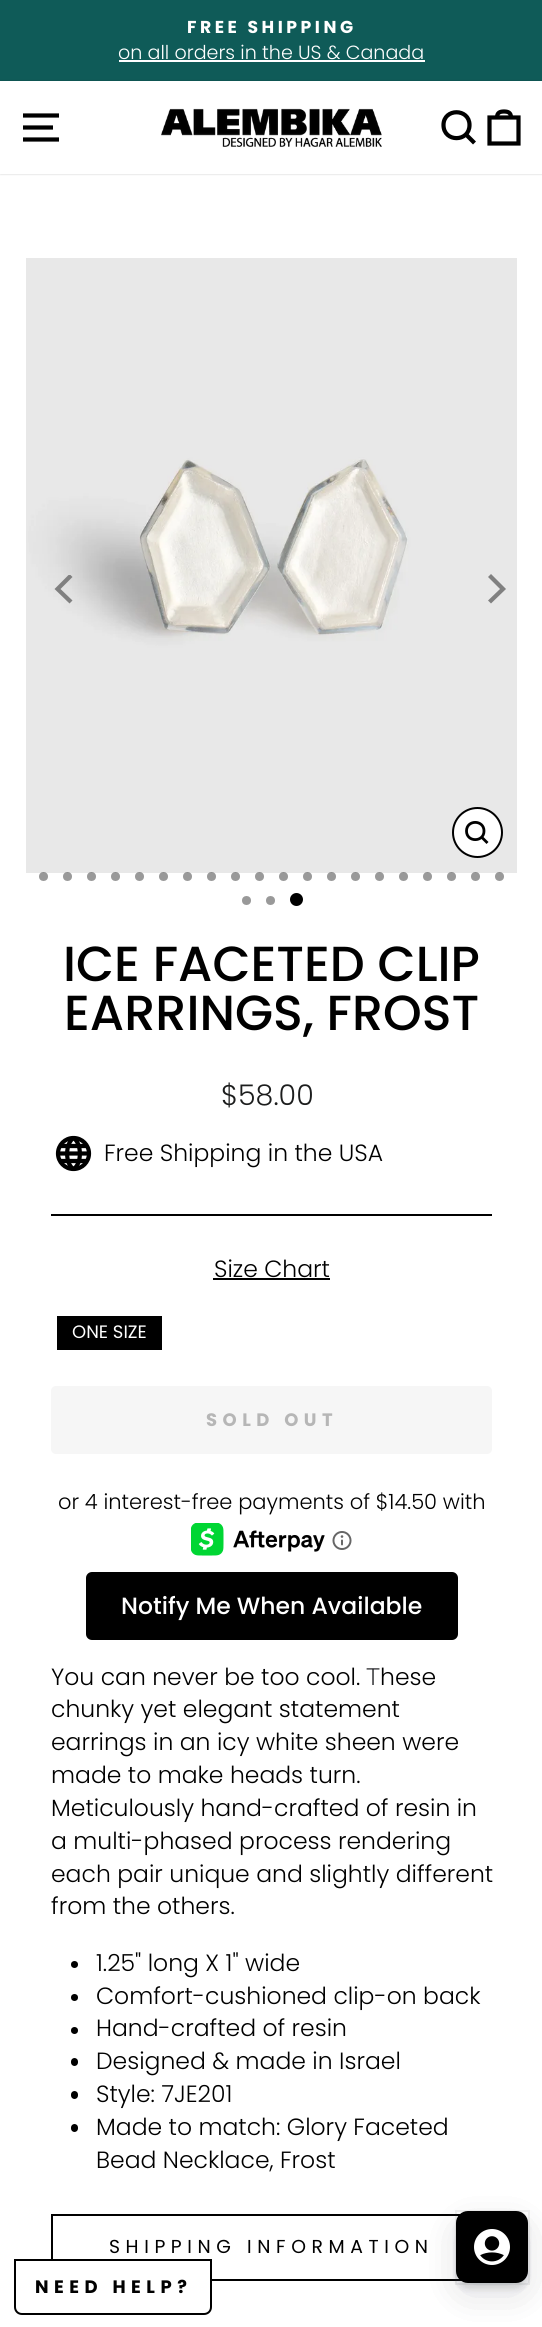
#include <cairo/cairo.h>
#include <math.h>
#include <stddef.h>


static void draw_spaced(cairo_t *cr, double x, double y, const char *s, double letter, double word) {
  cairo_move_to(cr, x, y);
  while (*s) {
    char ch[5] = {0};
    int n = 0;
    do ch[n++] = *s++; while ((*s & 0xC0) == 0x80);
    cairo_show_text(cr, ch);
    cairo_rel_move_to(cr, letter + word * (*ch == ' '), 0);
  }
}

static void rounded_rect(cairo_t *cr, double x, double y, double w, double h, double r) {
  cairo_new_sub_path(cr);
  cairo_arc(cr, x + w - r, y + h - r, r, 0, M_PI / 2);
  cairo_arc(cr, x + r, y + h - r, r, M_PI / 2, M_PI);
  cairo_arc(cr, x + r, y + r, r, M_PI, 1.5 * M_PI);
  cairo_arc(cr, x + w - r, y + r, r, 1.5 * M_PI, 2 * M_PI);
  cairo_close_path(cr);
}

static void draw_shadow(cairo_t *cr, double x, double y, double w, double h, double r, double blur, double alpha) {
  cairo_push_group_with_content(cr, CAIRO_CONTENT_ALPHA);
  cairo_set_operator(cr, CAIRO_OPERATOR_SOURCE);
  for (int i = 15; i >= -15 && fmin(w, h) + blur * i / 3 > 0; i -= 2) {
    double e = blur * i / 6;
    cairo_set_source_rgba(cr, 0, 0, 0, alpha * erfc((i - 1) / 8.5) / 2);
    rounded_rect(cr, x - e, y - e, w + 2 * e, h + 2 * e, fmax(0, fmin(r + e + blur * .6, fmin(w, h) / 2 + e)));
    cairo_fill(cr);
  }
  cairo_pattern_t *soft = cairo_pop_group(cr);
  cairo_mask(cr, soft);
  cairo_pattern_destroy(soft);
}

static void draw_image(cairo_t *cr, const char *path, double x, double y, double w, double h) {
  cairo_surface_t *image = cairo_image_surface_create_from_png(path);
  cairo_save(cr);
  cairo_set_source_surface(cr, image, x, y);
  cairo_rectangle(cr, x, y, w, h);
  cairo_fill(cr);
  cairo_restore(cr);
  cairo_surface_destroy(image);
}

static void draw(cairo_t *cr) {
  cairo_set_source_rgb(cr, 1, 1, 1);
  cairo_paint(cr);
  cairo_set_source_rgb(cr, 15 / 255.0, 91 / 255.0, 88 / 255.0);
  cairo_rectangle(cr, 0, 0, 542, 81);
  cairo_fill(cr);
  cairo_set_source_rgb(cr, 1, 1, 1);
  cairo_rectangle(cr, 119, 60, 306, 2);
  cairo_fill(cr);
  cairo_save(cr);
  cairo_set_fill_rule(cr, CAIRO_FILL_RULE_EVEN_ODD);
  cairo_new_path(cr);
  cairo_move_to(cr, 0, 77);
  cairo_line_to(cr, 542, 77);
  cairo_line_to(cr, 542, 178);
  cairo_line_to(cr, 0, 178);
  cairo_close_path(cr);
  cairo_move_to(cr, 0, 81);
  cairo_line_to(cr, 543, 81);
  cairo_line_to(cr, 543, 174);
  cairo_line_to(cr, 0, 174);
  cairo_close_path(cr);
  cairo_clip(cr);
  cairo_set_source_rgb(cr, 0, 0, 0);
  draw_shadow(cr, 0, 81, 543, 93, 0, 1, 0.2);
  cairo_restore(cr);
  cairo_new_path(cr);
  cairo_move_to(cr, 23, 115.5);
  cairo_line_to(cr, 59, 115.5);
  cairo_move_to(cr, 23, 127.5);
  cairo_line_to(cr, 53, 127.5);
  cairo_move_to(cr, 23, 139.5);
  cairo_line_to(cr, 59, 139.5);
  cairo_set_source_rgb(cr, 0, 0, 0);
  cairo_set_line_width(cr, 4.2);
  cairo_stroke(cr);
  draw_image(cr, "images/1.png", 161, 108, 221, 39);
  cairo_new_path(cr);
  cairo_move_to(cr, 469.5, 125);
  cairo_curve_to(cr, 469.5, 142.5, 443.5, 142.5, 443.5, 125);
  cairo_curve_to(cr, 443.5, 108, 469.5, 108, 469.5, 125);
  cairo_close_path(cr);
  cairo_move_to(cr, 474.5, 143);
  cairo_line_to(cr, 466, 134.5);
  cairo_stroke(cr);
  cairo_new_path(cr);
  cairo_move_to(cr, 489.5, 117.5);
  cairo_line_to(cr, 518.5, 117.5);
  cairo_line_to(cr, 518.5, 143.5);
  cairo_line_to(cr, 489.5, 143.5);
  cairo_close_path(cr);
  cairo_move_to(cr, 497, 117.5);
  cairo_curve_to(cr, 497, 112.5, 500, 111.5, 504, 111.5);
  cairo_curve_to(cr, 508, 111.5, 511, 112.5, 511, 117.5);
  cairo_stroke(cr);
  draw_image(cr, "images/2.png", 26, 258, 491, 615);
  cairo_set_source_rgb(cr, 1, 1, 1);
  cairo_arc(cr, 477.5, 832.5, 24.5, 0, 2 * M_PI);
  cairo_fill_preserve(cr);
  cairo_set_source_rgb(cr, 0, 0, 0);
  cairo_set_line_width(cr, 2);
  cairo_stroke(cr);
  cairo_new_path(cr);
  cairo_move_to(cr, 484, 831);
  cairo_curve_to(cr, 484, 842.5, 466.5, 842.5, 466.5, 831);
  cairo_curve_to(cr, 466.5, 819.5, 484, 819.5, 484, 831);
  cairo_close_path(cr);
  cairo_move_to(cr, 487.5, 843);
  cairo_line_to(cr, 481.5, 837);
  cairo_set_line_width(cr, 2.8);
  cairo_stroke(cr);
  cairo_save(cr);
  cairo_rectangle(cr, 51, 575, 29, 30);
  cairo_clip(cr);
  cairo_set_source_rgb(cr, 128 / 255.0, 128 / 255.0, 128 / 255.0);
  cairo_new_path(cr);
  cairo_move_to(cr, 54.5, 589);
  cairo_line_to(cr, 69.5, 603.5);
  cairo_line_to(cr, 72.5, 600.5);
  cairo_line_to(cr, 60.5, 589);
  cairo_line_to(cr, 72.5, 577);
  cairo_line_to(cr, 69.5, 574);
  cairo_close_path(cr);
  cairo_fill(cr);
  cairo_restore(cr);
  cairo_set_source_rgb(cr, 128 / 255.0, 128 / 255.0, 128 / 255.0);
  cairo_new_path(cr);
  cairo_move_to(cr, 506, 589);
  cairo_line_to(cr, 491, 574);
  cairo_line_to(cr, 488, 577);
  cairo_line_to(cr, 500, 589);
  cairo_line_to(cr, 488, 600.5);
  cairo_line_to(cr, 491, 603.5);
  cairo_close_path(cr);
  cairo_fill(cr);
  cairo_set_source_rgba(cr, 0, 0, 0, 0.4);
  cairo_arc(cr, 43.5, 876.5, 4.5, 0, 2 * M_PI);
  cairo_fill(cr);
  cairo_arc(cr, 67.5, 876.5, 4.5, 0, 2 * M_PI);
  cairo_fill(cr);
  cairo_arc(cr, 91.5, 876.5, 4.5, 0, 2 * M_PI);
  cairo_fill(cr);
  cairo_arc(cr, 115.5, 876.5, 4.5, 0, 2 * M_PI);
  cairo_fill(cr);
  cairo_arc(cr, 139.5, 876.5, 4.5, 0, 2 * M_PI);
  cairo_fill(cr);
  cairo_arc(cr, 163.5, 876.5, 4.5, 0, 2 * M_PI);
  cairo_fill(cr);
  cairo_arc(cr, 187.5, 876.5, 4.5, 0, 2 * M_PI);
  cairo_fill(cr);
  cairo_arc(cr, 211.5, 876.5, 4.5, 0, 2 * M_PI);
  cairo_fill(cr);
  cairo_arc(cr, 235.5, 876.5, 4.5, 0, 2 * M_PI);
  cairo_fill(cr);
  cairo_arc(cr, 259.5, 876.5, 4.5, 0, 2 * M_PI);
  cairo_fill(cr);
  cairo_arc(cr, 283.5, 876.5, 4.5, 0, 2 * M_PI);
  cairo_fill(cr);
  cairo_arc(cr, 307.5, 876.5, 4.5, 0, 2 * M_PI);
  cairo_fill(cr);
  cairo_arc(cr, 331.5, 876.5, 4.5, 0, 2 * M_PI);
  cairo_fill(cr);
  cairo_arc(cr, 355.5, 876.5, 4.5, 0, 2 * M_PI);
  cairo_fill(cr);
  cairo_arc(cr, 379.5, 876.5, 4.5, 0, 2 * M_PI);
  cairo_fill(cr);
  cairo_arc(cr, 403.5, 876.5, 4.5, 0, 2 * M_PI);
  cairo_fill(cr);
  cairo_arc(cr, 427.5, 876.5, 4.5, 0, 2 * M_PI);
  cairo_fill(cr);
  cairo_arc(cr, 451.5, 876.5, 4.5, 0, 2 * M_PI);
  cairo_fill(cr);
  cairo_arc(cr, 475.5, 876.5, 4.5, 0, 2 * M_PI);
  cairo_fill(cr);
  cairo_arc(cr, 499.5, 876.5, 4.5, 0, 2 * M_PI);
  cairo_fill(cr);
  cairo_set_source_rgb(cr, 153 / 255.0, 153 / 255.0, 153 / 255.0);
  cairo_arc(cr, 246.5, 900.5, 4.5, 0, 2 * M_PI);
  cairo_fill(cr);
  cairo_arc(cr, 270.5, 900.5, 4.5, 0, 2 * M_PI);
  cairo_fill(cr);
  cairo_set_source_rgb(cr, 0, 0, 0);
  cairo_arc(cr, 296.5, 899.5, 6.5, 0, 2 * M_PI);
  cairo_fill(cr);
  cairo_arc(cr, 73.5, 1153.5, 15.5, 0, 2 * M_PI);
  cairo_set_line_width(cr, 4.2);
  cairo_stroke(cr);
  cairo_new_path(cr);
  cairo_move_to(cr, 60, 1146);
  cairo_line_to(cr, 87, 1146);
  cairo_move_to(cr, 58, 1153.5);
  cairo_line_to(cr, 89, 1153.5);
  cairo_move_to(cr, 60, 1161);
  cairo_line_to(cr, 87, 1161);
  cairo_move_to(cr, 73.5, 1138);
  cairo_curve_to(cr, 65, 1143.5, 65, 1164, 73.5, 1169);
  cairo_move_to(cr, 73.5, 1138);
  cairo_curve_to(cr, 82, 1143.5, 82, 1164, 73.5, 1169);
  cairo_stroke(cr);
  cairo_rectangle(cr, 51, 1214, 441, 2);
  cairo_fill(cr);
  cairo_rectangle(cr, 213, 1278, 117, 2);
  cairo_fill(cr);
  cairo_rectangle(cr, 57, 1316, 105, 34);
  cairo_fill(cr);
  cairo_set_source_rgb(cr, 246 / 255.0, 246 / 255.0, 246 / 255.0);
  rounded_rect(cr, 51, 1386, 441, 68, 5);
  cairo_fill(cr);
  draw_image(cr, "images/3.png", 191, 1523, 134, 33);
  draw_image(cr, "images/4.png", 332, 1531, 20, 19);
  cairo_set_source_rgb(cr, 0, 0, 0);
  rounded_rect(cr, 86, 1572, 372, 68, 6);
  cairo_fill(cr);
  cairo_arc(cr, 74.5, 1964.5, 3.5, 0, 2 * M_PI);
  cairo_fill(cr);
  cairo_arc(cr, 74.5, 1997.5, 3.5, 0, 2 * M_PI);
  cairo_fill(cr);
  cairo_arc(cr, 74.5, 2030.5, 3.5, 0, 2 * M_PI);
  cairo_fill(cr);
  rounded_rect(cr, 71, 2058, 7, 8, 3.5);
  cairo_fill(cr);
  rounded_rect(cr, 71, 2091, 7, 8, 3.5);
  cairo_fill(cr);
  rounded_rect(cr, 71, 2124, 7, 8, 3.5);
  cairo_fill(cr);
  cairo_rectangle(cr, 212, 2279, 250, 2);
  cairo_fill(cr);
  cairo_rectangle(cr, 51, 2214, 410, 2);
  cairo_fill(cr);
  cairo_rectangle(cr, 51, 2214, 2, 45);
  cairo_fill(cr);
  cairo_new_path(cr);
  cairo_move_to(cr, 15, 2260);
  cairo_line_to(cr, 211, 2260);
  cairo_line_to(cr, 211, 2307);
  cairo_curve_to(cr, 211, 2311, 208, 2314, 204, 2314);
  cairo_line_to(cr, 22, 2314);
  cairo_curve_to(cr, 18, 2314, 15, 2311, 15, 2307);
  cairo_close_path(cr);
  cairo_set_line_width(cr, 2);
  cairo_stroke(cr);
  cairo_set_source_rgb(cr, 55 / 255.0, 63 / 255.0, 71 / 255.0);
  draw_shadow(cr, 456, 2223, 72, 72, 12, 18, 0.08);
  draw_shadow(cr, 456, 2217, 72, 72, 12, 3, 0.08);
  cairo_rectangle(cr, 456, 2211, 73, 73);
  cairo_set_source_rgba(cr, 55 / 255.0, 63 / 255.0, 71 / 255.0, 0.04);
  cairo_stroke(cr);
  cairo_set_source_rgb(cr, 55 / 255.0, 63 / 255.0, 71 / 255.0);
  draw_shadow(cr, 456, 2223, 72, 72, 12, 18, 0.08);
  draw_shadow(cr, 456, 2217, 72, 72, 12, 3, 0.08);
  cairo_rectangle(cr, 456, 2211, 73, 73);
  cairo_set_source_rgba(cr, 55 / 255.0, 63 / 255.0, 71 / 255.0, 0.04);
  cairo_stroke(cr);
  cairo_set_source_rgb(cr, 0, 0, 0);
  rounded_rect(cr, 456, 2211, 72, 72, 12);
  cairo_fill(cr);
  draw_image(cr, "images/5.png", 474, 2229, 36, 36);
  cairo_select_font_face(cr, "Poppins", CAIRO_FONT_SLANT_NORMAL, CAIRO_FONT_WEIGHT_BOLD);
  cairo_set_font_size(cr, 17.25);
  cairo_set_source_rgb(cr, 1, 1, 1);
  draw_spaced(cr, 187, 33, "FREE SHIPPING", 3.5, 0);
  cairo_select_font_face(cr, "Poppins Light", CAIRO_FONT_SLANT_NORMAL, CAIRO_FONT_WEIGHT_NORMAL);
  cairo_set_font_size(cr, 19.1);
  cairo_move_to(cr, 118, 59);
  cairo_show_text(cr, "on all orders in the US & Canada");
  cairo_select_font_face(cr, "Poppins Medium", CAIRO_FONT_SLANT_NORMAL, CAIRO_FONT_WEIGHT_NORMAL);
  cairo_set_font_size(cr, 49.25);
  cairo_set_source_rgb(cr, 0, 0, 0);
  cairo_move_to(cr, 63, 981);
  cairo_show_text(cr, "ICE FACETED CLIP");
  cairo_move_to(cr, 64, 1030);
  cairo_show_text(cr, "EARRINGS, FROST");
  cairo_select_font_face(cr, "Poppins Light", CAIRO_FONT_SLANT_NORMAL, CAIRO_FONT_WEIGHT_NORMAL);
  cairo_set_font_size(cr, 28.5);
  cairo_set_source_rgb(cr, 28 / 255.0, 29 / 255.0, 29 / 255.0);
  cairo_move_to(cr, 221, 1105);
  cairo_show_text(cr, "$58.00");
  cairo_set_font_size(cr, 23.5);
  cairo_set_source_rgb(cr, 0, 0, 0);
  cairo_move_to(cr, 104, 1161);
  cairo_show_text(cr, "Free Shipping in the USA");
  cairo_move_to(cr, 214, 1277);
  cairo_show_text(cr, "Size Chart");
  cairo_select_font_face(cr, "Poppins", CAIRO_FONT_SLANT_NORMAL, CAIRO_FONT_WEIGHT_NORMAL);
  cairo_set_font_size(cr, 18);
  cairo_set_source_rgb(cr, 1, 1, 1);
  cairo_move_to(cr, 72, 1338);
  cairo_show_text(cr, "ONE SIZE");
  cairo_select_font_face(cr, "Poppins", CAIRO_FONT_SLANT_NORMAL, CAIRO_FONT_WEIGHT_BOLD);
  cairo_set_source_rgb(cr, 182 / 255.0, 182 / 255.0, 182 / 255.0);
  draw_spaced(cr, 206, 1426, "SOLD OUT", 5.5, 0);
  cairo_select_font_face(cr, "Poppins Light", CAIRO_FONT_SLANT_NORMAL, CAIRO_FONT_WEIGHT_NORMAL);
  cairo_set_font_size(cr, 21);
  cairo_set_source_rgb(cr, 0, 0, 0);
  cairo_move_to(cr, 58, 1509);
  cairo_show_text(cr, "or 4 interest-free payments of $14.50 with");
  cairo_select_font_face(cr, "Poppins Medium", CAIRO_FONT_SLANT_NORMAL, CAIRO_FONT_WEIGHT_NORMAL);
  cairo_set_font_size(cr, 23.5);
  cairo_set_source_rgb(cr, 1, 1, 1);
  cairo_move_to(cr, 121, 1614);
  cairo_show_text(cr, "Notify Me When Available");
  cairo_select_font_face(cr, "Poppins Light", CAIRO_FONT_SLANT_NORMAL, CAIRO_FONT_WEIGHT_NORMAL);
  cairo_set_source_rgb(cr, 0, 0, 0);
  cairo_move_to(cr, 51, 1685);
  cairo_show_text(cr, "You can never be too cool.");
  cairo_select_font_face(cr, "Roboto Light", CAIRO_FONT_SLANT_NORMAL, CAIRO_FONT_WEIGHT_NORMAL);
  cairo_set_source_rgb(cr, 32 / 255.0, 33 / 255.0, 36 / 255.0);
  cairo_move_to(cr, 366, 1685);
  cairo_show_text(cr, "T");
  cairo_select_font_face(cr, "Poppins Light", CAIRO_FONT_SLANT_NORMAL, CAIRO_FONT_WEIGHT_NORMAL);
  cairo_set_source_rgb(cr, 0, 0, 0);
  cairo_move_to(cr, 380, 1685);
  cairo_show_text(cr, "hese");
  cairo_move_to(cr, 51, 1717);
  cairo_show_text(cr, "chunky yet elegant statement");
  cairo_move_to(cr, 51, 1750);
  cairo_show_text(cr, "earrings in an icy white sheen were");
  cairo_move_to(cr, 51, 1783);
  cairo_show_text(cr, "made to make heads turn.");
  cairo_move_to(cr, 51, 1816);
  cairo_show_text(cr, "Meticulously hand-crafted of resin in");
  cairo_move_to(cr, 51, 1849);
  cairo_show_text(cr, "a multi-phased process rendering");
  cairo_move_to(cr, 51, 1882);
  cairo_show_text(cr, "each pair unique and slightly different");
  cairo_move_to(cr, 51, 1914);
  cairo_show_text(cr, "from the others.");
  cairo_move_to(cr, 96, 1971);
  cairo_show_text(cr, "1.25\" long X 1\" wide");
  cairo_move_to(cr, 96, 2004);
  cairo_show_text(cr, "Comfort-cushioned clip-on back");
  cairo_move_to(cr, 96, 2036);
  cairo_show_text(cr, "Hand-crafted of resin");
  cairo_move_to(cr, 96, 2069);
  cairo_show_text(cr, "Designed & made in Israel");
  cairo_move_to(cr, 96, 2102);
  cairo_show_text(cr, "Style: 7JE201");
  cairo_move_to(cr, 96, 2135);
  cairo_show_text(cr, "Made to match: Glory Faceted");
  cairo_move_to(cr, 96, 2168);
  cairo_show_text(cr, "Bead Necklace, Frost");
  cairo_select_font_face(cr, "Poppins", CAIRO_FONT_SLANT_NORMAL, CAIRO_FONT_WEIGHT_NORMAL);
  cairo_set_font_size(cr, 18.75);
  draw_spaced(cr, 109, 2253, "SHIPPING INFORMATION", 5.6, 0);
  cairo_select_font_face(cr, "Poppins", CAIRO_FONT_SLANT_NORMAL, CAIRO_FONT_WEIGHT_BOLD);
  cairo_set_font_size(cr, 18);
  draw_spaced(cr, 35, 2293, "NEED HELP?", 5.5, 0);
}

int main(void) {
  cairo_surface_t *surface = cairo_image_surface_create(CAIRO_FORMAT_RGB24, 542, 2327);
  cairo_t *cr = cairo_create(surface);
  cairo_font_options_t *options = cairo_font_options_create();
  cairo_font_options_set_hint_metrics(options, CAIRO_HINT_METRICS_OFF);
  cairo_font_options_set_hint_style(options, CAIRO_HINT_STYLE_NONE);
  cairo_set_font_options(cr, options);
  cairo_set_miter_limit(cr, 4);
  draw(cr);
  cairo_surface_write_to_png(surface, "out.png");
  cairo_font_options_destroy(options);
  cairo_destroy(cr);
  cairo_surface_destroy(surface);
  return 0;
}
